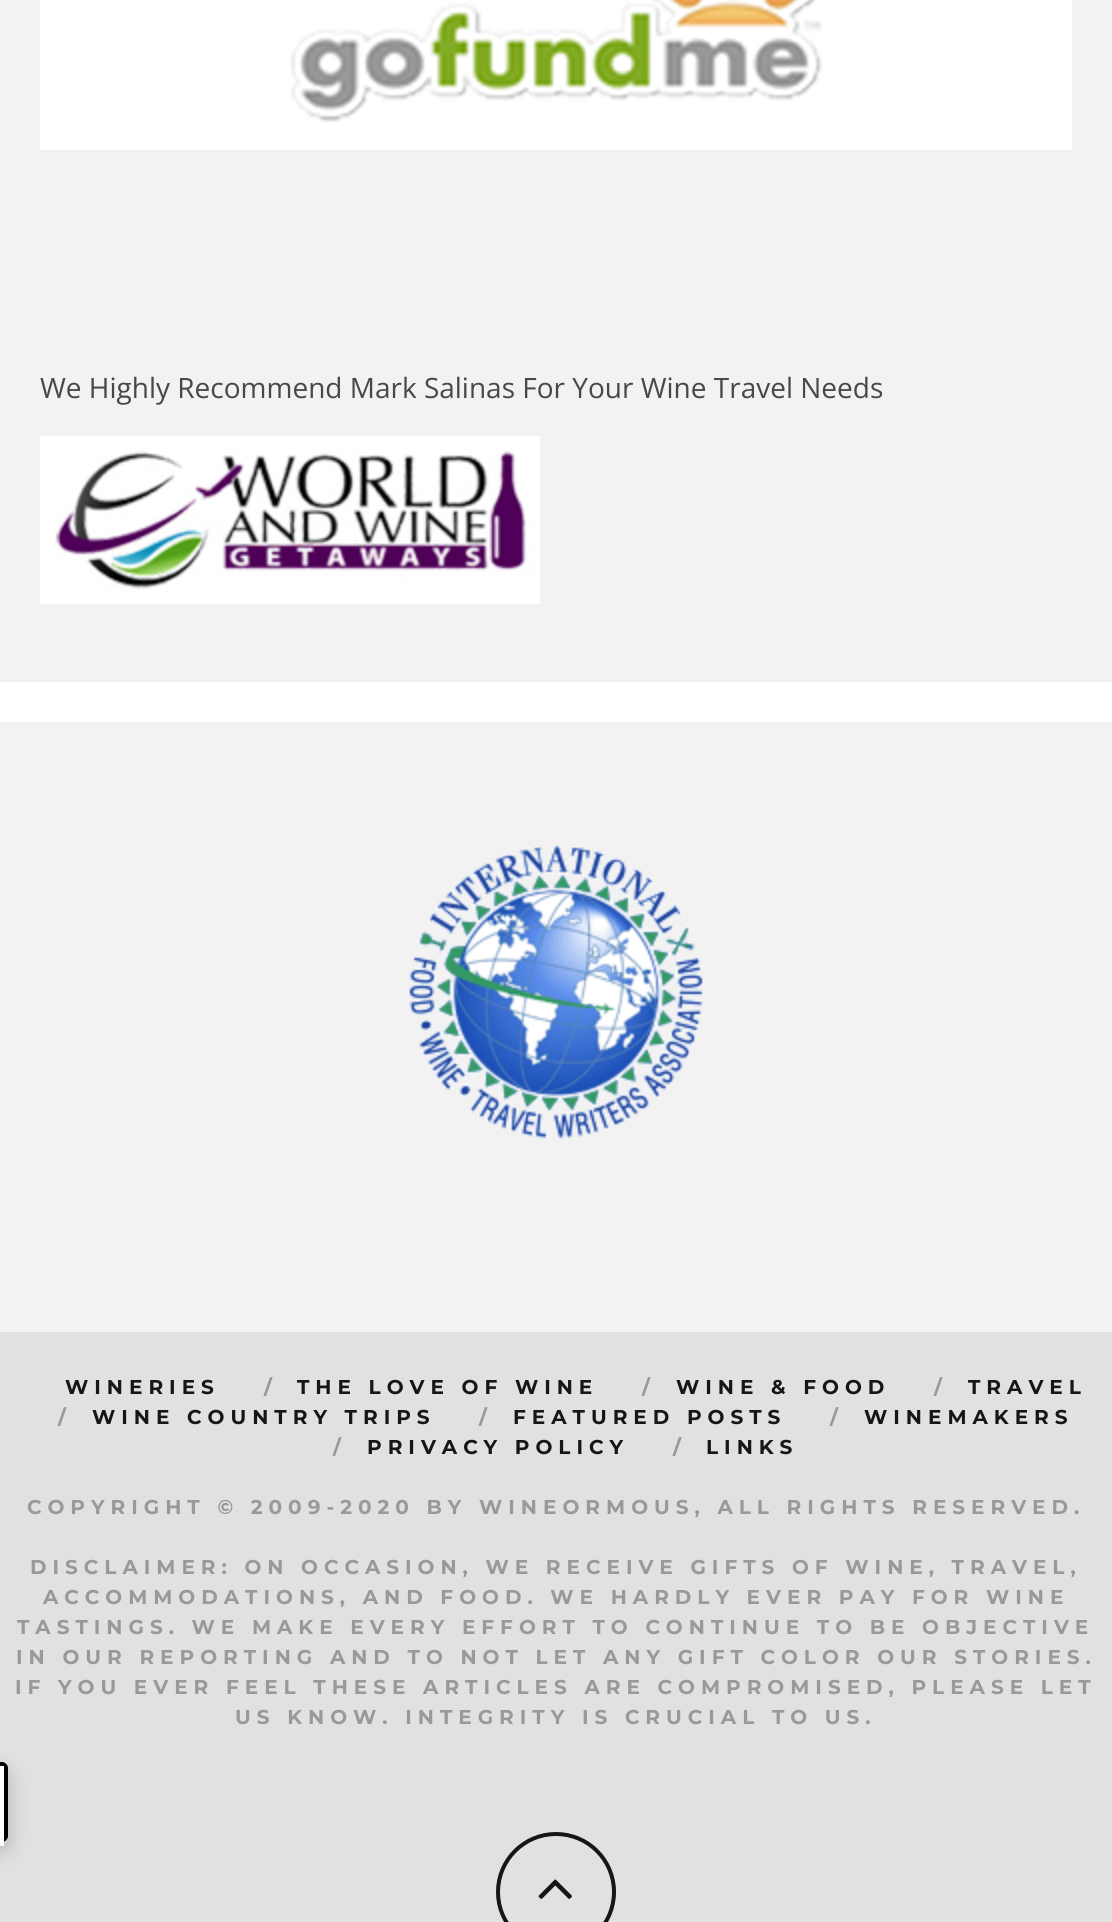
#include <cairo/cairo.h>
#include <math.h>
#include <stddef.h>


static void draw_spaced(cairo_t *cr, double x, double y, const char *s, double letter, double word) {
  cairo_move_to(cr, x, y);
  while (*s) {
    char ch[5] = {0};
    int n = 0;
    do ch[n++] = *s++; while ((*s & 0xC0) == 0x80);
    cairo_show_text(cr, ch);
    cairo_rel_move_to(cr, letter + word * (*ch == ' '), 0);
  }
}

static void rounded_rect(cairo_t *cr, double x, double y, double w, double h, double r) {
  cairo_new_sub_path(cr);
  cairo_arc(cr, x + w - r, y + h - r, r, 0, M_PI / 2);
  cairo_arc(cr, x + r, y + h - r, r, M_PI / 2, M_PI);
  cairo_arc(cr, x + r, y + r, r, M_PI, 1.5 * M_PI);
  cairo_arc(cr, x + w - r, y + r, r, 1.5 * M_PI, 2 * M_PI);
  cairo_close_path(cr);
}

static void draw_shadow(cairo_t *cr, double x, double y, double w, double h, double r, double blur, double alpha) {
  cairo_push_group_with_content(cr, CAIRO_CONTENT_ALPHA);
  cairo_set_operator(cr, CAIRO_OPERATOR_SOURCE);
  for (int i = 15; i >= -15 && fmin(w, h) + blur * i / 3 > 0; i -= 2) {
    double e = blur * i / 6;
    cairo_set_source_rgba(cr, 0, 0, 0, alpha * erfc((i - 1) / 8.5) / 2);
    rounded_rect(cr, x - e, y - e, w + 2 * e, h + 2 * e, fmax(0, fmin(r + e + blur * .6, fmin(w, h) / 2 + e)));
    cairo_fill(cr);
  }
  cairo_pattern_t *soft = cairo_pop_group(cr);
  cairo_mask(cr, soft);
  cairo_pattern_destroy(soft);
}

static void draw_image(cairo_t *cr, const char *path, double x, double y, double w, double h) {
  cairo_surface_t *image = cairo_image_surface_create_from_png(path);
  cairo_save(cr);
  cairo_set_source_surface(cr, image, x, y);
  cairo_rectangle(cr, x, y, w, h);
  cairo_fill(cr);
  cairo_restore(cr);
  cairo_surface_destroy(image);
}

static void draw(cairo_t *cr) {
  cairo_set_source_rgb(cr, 1, 1, 1);
  cairo_paint(cr);
  cairo_set_source_rgb(cr, 242 / 255.0, 242 / 255.0, 242 / 255.0);
  cairo_rectangle(cr, 0, 0, 1112, 682);
  cairo_fill(cr);
  draw_image(cr, "images/1.png", 40, 0, 1032, 150);
  draw_image(cr, "images/2.png", 40, 436, 500, 168);
  cairo_rectangle(cr, 0, 722, 1112, 610);
  cairo_fill(cr);
  draw_image(cr, "images/3.png", 409, 845, 294, 294);
  cairo_set_source_rgb(cr, 225 / 255.0, 225 / 255.0, 225 / 255.0);
  cairo_rectangle(cr, 0, 1332, 1112, 590);
  cairo_fill(cr);
  cairo_arc(cr, 556, 1892, 58, 0, 2 * M_PI);
  cairo_set_source_rgb(cr, 22 / 255.0, 22 / 255.0, 22 / 255.0);
  cairo_set_line_width(cr, 4);
  cairo_stroke(cr);
  draw_image(cr, "images/4.png", 538, 1879, 34, 20);
  cairo_set_source_rgb(cr, 0, 0, 0);
  draw_shadow(cr, -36, 1770, 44, 80, 6, 10, 0.2);
  cairo_new_path(cr);
  cairo_move_to(cr, -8, 1764);
  cairo_line_to(cr, 2, 1764);
  cairo_curve_to(cr, 4, 1764, 6, 1766, 6, 1768);
  cairo_line_to(cr, 6, 1836);
  cairo_curve_to(cr, 6, 1838, 4, 1840, 2, 1840);
  cairo_line_to(cr, -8, 1840);
  cairo_close_path(cr);
  cairo_set_source_rgb(cr, 0, 0, 0);
  cairo_stroke(cr);
  cairo_set_source_rgb(cr, 1, 1, 1);
  cairo_rectangle(cr, 0, 1766, 4, 80);
  cairo_fill(cr);
  cairo_select_font_face(cr, "Open Sans", CAIRO_FONT_SLANT_NORMAL, CAIRO_FONT_WEIGHT_NORMAL);
  cairo_set_font_size(cr, 28);
  cairo_set_source_rgb(cr, 72 / 255.0, 72 / 255.0, 72 / 255.0);
  cairo_move_to(cr, 40, 398);
  cairo_show_text(cr, "We Highly Recommend Mark Salinas For Your Wine Travel Needs");
  cairo_select_font_face(cr, "Montserrat", CAIRO_FONT_SLANT_NORMAL, CAIRO_FONT_WEIGHT_BOLD);
  cairo_set_font_size(cr, 20);
  cairo_set_source_rgb(cr, 22 / 255.0, 22 / 255.0, 22 / 255.0);
  draw_spaced(cr, 65, 1394, "WINERIES", 6, 0);
  cairo_set_source_rgb(cr, 153 / 255.0, 153 / 255.0, 153 / 255.0);
  draw_spaced(cr, 264, 1394, "/", 6, 0);
  cairo_set_source_rgb(cr, 22 / 255.0, 22 / 255.0, 22 / 255.0);
  draw_spaced(cr, 297, 1394, "THE LOVE OF WINE", 6, 0);
  cairo_set_source_rgb(cr, 153 / 255.0, 153 / 255.0, 153 / 255.0);
  draw_spaced(cr, 642, 1394, "/", 6, 0);
  cairo_set_source_rgb(cr, 22 / 255.0, 22 / 255.0, 22 / 255.0);
  draw_spaced(cr, 676, 1394, "WINE & FOOD", 6, 0);
  cairo_set_source_rgb(cr, 153 / 255.0, 153 / 255.0, 153 / 255.0);
  draw_spaced(cr, 934, 1394, "/", 6, 0);
  cairo_set_source_rgb(cr, 22 / 255.0, 22 / 255.0, 22 / 255.0);
  draw_spaced(cr, 968, 1394, "TRAVEL", 6, 0);
  cairo_set_source_rgb(cr, 153 / 255.0, 153 / 255.0, 153 / 255.0);
  draw_spaced(cr, 58, 1424, "/", 6, 0);
  cairo_set_source_rgb(cr, 22 / 255.0, 22 / 255.0, 22 / 255.0);
  draw_spaced(cr, 92, 1424, "WINE COUNTRY TRIPS", 6, 0);
  cairo_set_source_rgb(cr, 153 / 255.0, 153 / 255.0, 153 / 255.0);
  draw_spaced(cr, 479, 1424, "/", 6, 0);
  cairo_set_source_rgb(cr, 22 / 255.0, 22 / 255.0, 22 / 255.0);
  draw_spaced(cr, 513, 1424, "FEATURED POSTS", 6, 0);
  cairo_set_source_rgb(cr, 153 / 255.0, 153 / 255.0, 153 / 255.0);
  draw_spaced(cr, 830, 1424, "/", 6, 0);
  cairo_set_source_rgb(cr, 22 / 255.0, 22 / 255.0, 22 / 255.0);
  draw_spaced(cr, 864, 1424, "WINEMAKERS", 6, 0);
  cairo_set_source_rgb(cr, 153 / 255.0, 153 / 255.0, 153 / 255.0);
  draw_spaced(cr, 333, 1454, "/", 6, 0);
  cairo_set_source_rgb(cr, 22 / 255.0, 22 / 255.0, 22 / 255.0);
  draw_spaced(cr, 367, 1454, "PRIVACY POLICY", 6, 0);
  cairo_set_source_rgb(cr, 153 / 255.0, 153 / 255.0, 153 / 255.0);
  draw_spaced(cr, 673, 1454, "/", 6, 0);
  cairo_set_source_rgb(cr, 22 / 255.0, 22 / 255.0, 22 / 255.0);
  draw_spaced(cr, 706, 1454, "LINKS", 6, 0);
  cairo_set_source_rgb(cr, 153 / 255.0, 153 / 255.0, 153 / 255.0);
  draw_spaced(cr, 27, 1514, "COPYRIGHT © 2009-2020 BY WINEORMOUS, ALL RIGHTS RESERVED.", 6, 0);
  draw_spaced(cr, 30, 1574, "DISCLAIMER: ON OCCASION, WE RECEIVE GIFTS OF WINE, TRAVEL,", 6, 0);
  draw_spaced(cr, 43, 1604, "ACCOMMODATIONS, AND FOOD. WE HARDLY EVER PAY FOR WINE", 6, 0);
  draw_spaced(cr, 17, 1634, "TASTINGS. WE MAKE EVERY EFFORT TO CONTINUE TO BE OBJECTIVE", 6, 0);
  draw_spaced(cr, 16, 1664, "IN OUR REPORTING AND TO NOT LET ANY GIFT COLOR OUR STORIES.", 6, 0);
  draw_spaced(cr, 15, 1694, "IF YOU EVER FEEL THESE ARTICLES ARE COMPROMISED, PLEASE LET", 6, 0);
  draw_spaced(cr, 235, 1724, "US KNOW. INTEGRITY IS CRUCIAL TO US.", 6, 0);
}

int main(void) {
  cairo_surface_t *surface = cairo_image_surface_create(CAIRO_FORMAT_RGB24, 1112, 1922);
  cairo_t *cr = cairo_create(surface);
  cairo_font_options_t *options = cairo_font_options_create();
  cairo_font_options_set_hint_metrics(options, CAIRO_HINT_METRICS_OFF);
  cairo_font_options_set_hint_style(options, CAIRO_HINT_STYLE_NONE);
  cairo_set_font_options(cr, options);
  cairo_set_miter_limit(cr, 4);
  draw(cr);
  cairo_surface_write_to_png(surface, "out.png");
  cairo_font_options_destroy(options);
  cairo_destroy(cr);
  cairo_surface_destroy(surface);
  return 0;
}
